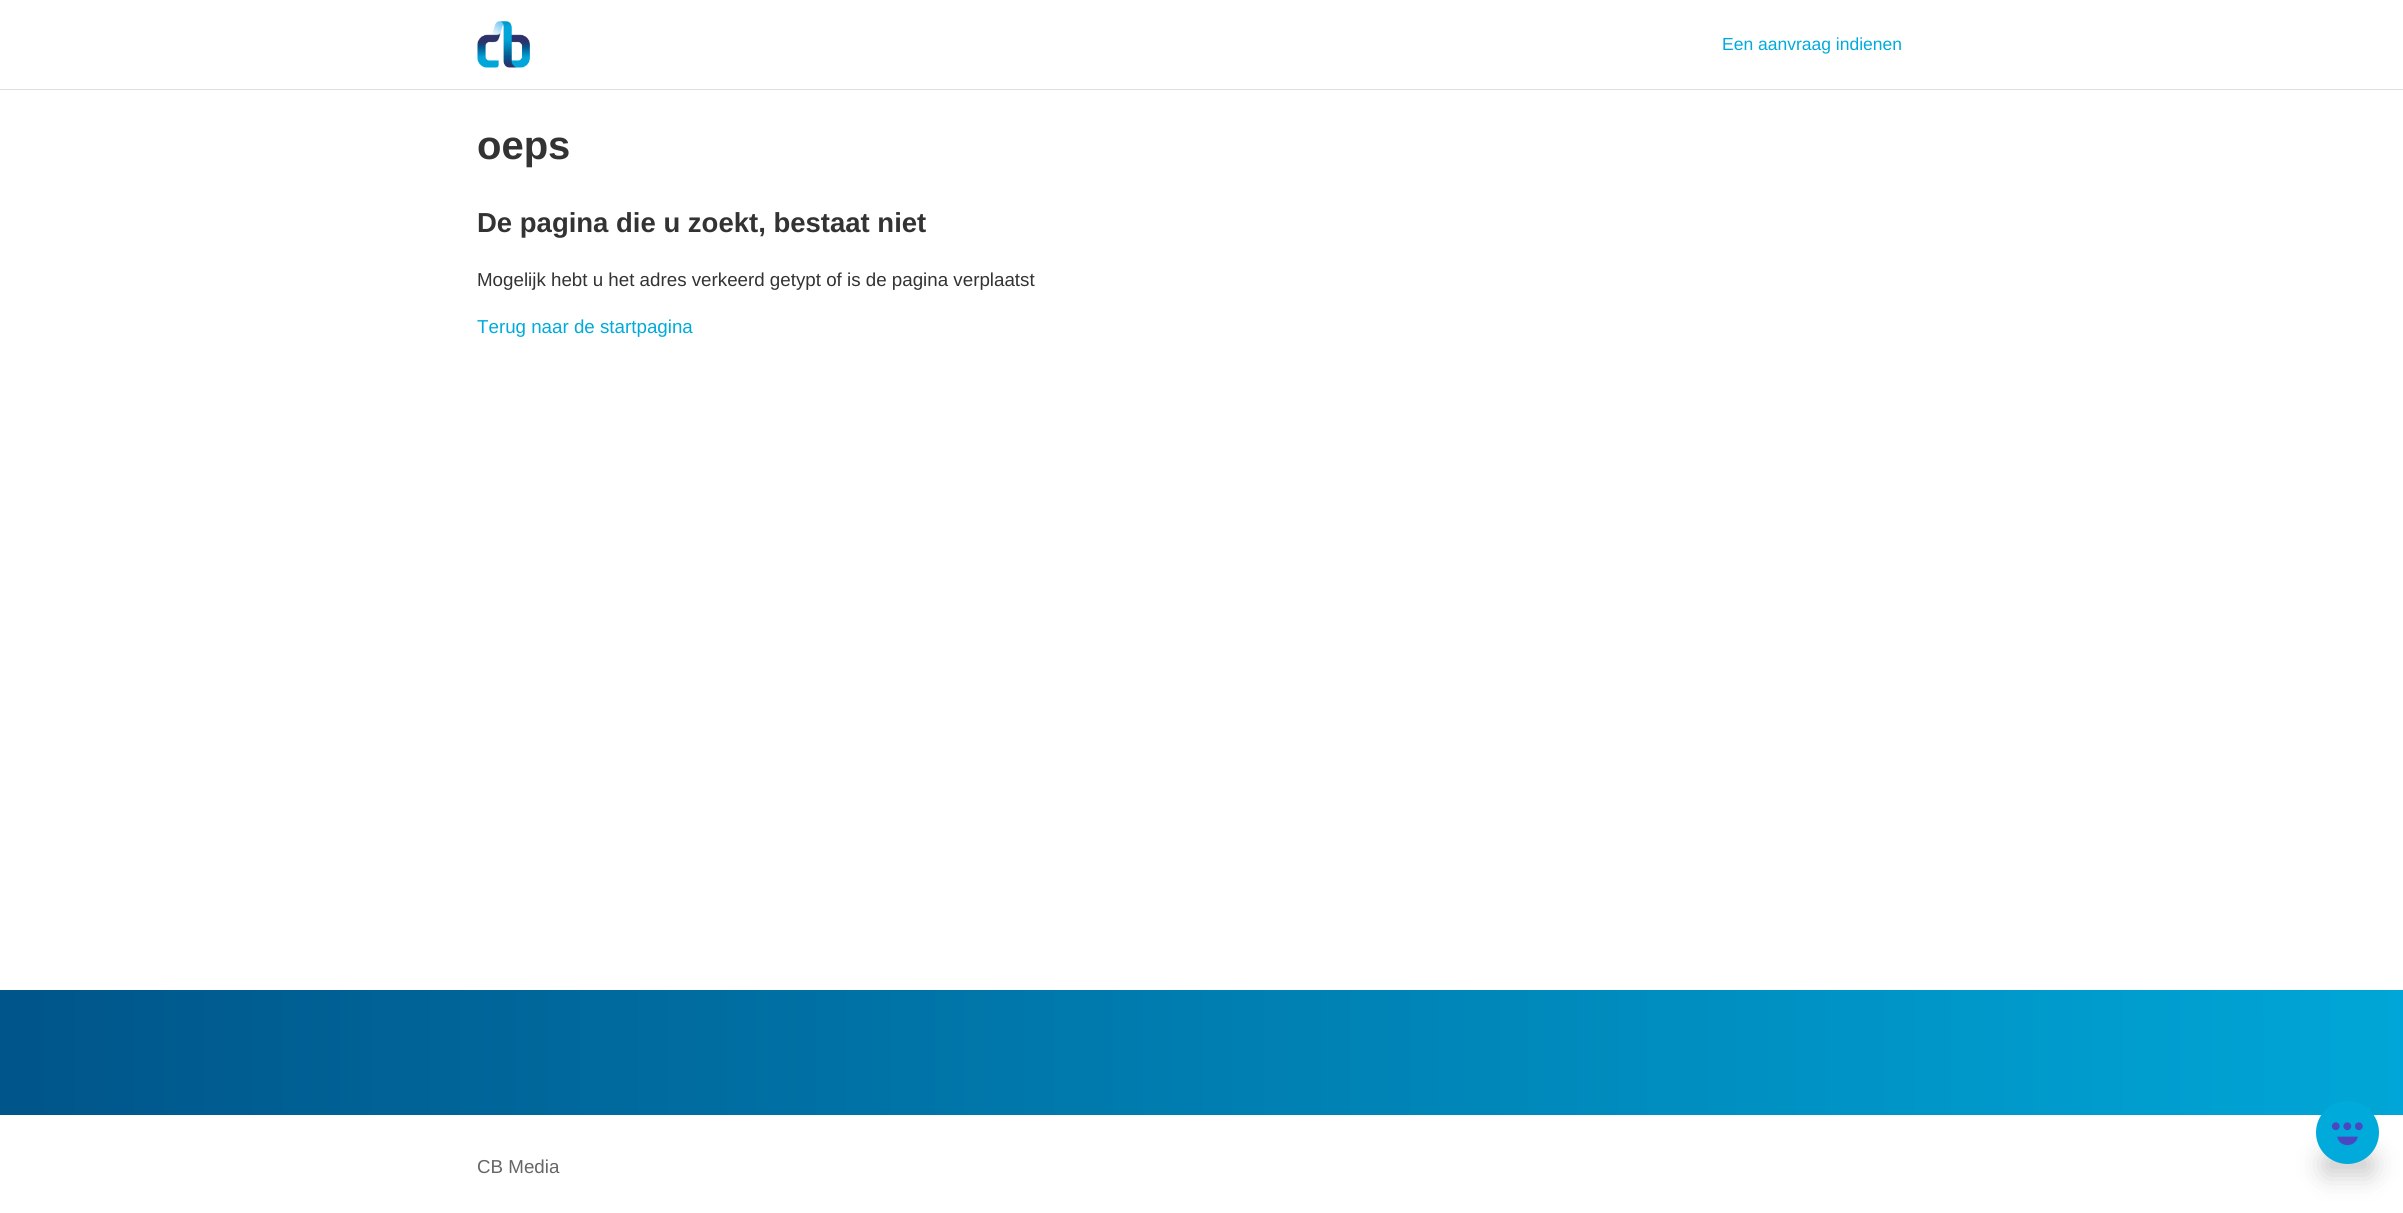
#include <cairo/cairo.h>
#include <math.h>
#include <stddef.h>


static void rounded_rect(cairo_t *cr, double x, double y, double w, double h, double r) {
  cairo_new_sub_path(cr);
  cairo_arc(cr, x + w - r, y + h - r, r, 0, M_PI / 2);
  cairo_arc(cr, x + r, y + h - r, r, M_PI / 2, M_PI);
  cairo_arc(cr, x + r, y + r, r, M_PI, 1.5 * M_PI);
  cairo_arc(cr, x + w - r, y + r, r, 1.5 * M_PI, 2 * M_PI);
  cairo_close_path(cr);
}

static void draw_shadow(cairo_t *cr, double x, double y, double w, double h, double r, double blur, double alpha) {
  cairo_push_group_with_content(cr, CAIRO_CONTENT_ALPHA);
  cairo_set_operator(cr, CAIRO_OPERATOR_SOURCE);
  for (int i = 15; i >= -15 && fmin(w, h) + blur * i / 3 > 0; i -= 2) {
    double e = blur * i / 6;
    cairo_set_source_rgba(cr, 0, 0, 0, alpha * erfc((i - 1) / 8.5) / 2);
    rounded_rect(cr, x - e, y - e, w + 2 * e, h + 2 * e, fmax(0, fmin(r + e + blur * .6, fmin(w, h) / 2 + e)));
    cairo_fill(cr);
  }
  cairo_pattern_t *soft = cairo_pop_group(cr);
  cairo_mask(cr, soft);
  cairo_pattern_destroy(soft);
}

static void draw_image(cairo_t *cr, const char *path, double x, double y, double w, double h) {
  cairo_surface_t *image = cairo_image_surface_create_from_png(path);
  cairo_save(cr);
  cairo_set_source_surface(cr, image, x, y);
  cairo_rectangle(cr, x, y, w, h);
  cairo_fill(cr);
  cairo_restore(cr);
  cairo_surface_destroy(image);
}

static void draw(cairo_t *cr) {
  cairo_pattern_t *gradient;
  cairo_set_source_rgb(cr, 1, 1, 1);
  cairo_paint(cr);
  draw_image(cr, "images/1.png", 477, 21, 53, 47);
  cairo_set_source_rgb(cr, 221 / 255.0, 221 / 255.0, 221 / 255.0);
  cairo_rectangle(cr, 0, 89, 2403, 1);
  cairo_fill(cr);
  gradient = cairo_pattern_create_linear(0, 1053, 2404, 1052);
  cairo_pattern_add_color_stop_rgba(gradient, 0, 0, 85 / 255.0, 138 / 255.0, 1);
  cairo_pattern_add_color_stop_rgba(gradient, 1, 0, 166 / 255.0, 215 / 255.0, 1);
  cairo_set_source(cr, gradient);
  cairo_pattern_destroy(gradient);
  cairo_rectangle(cr, 0, 990, 2403, 125);
  cairo_fill(cr);
  cairo_set_source_rgb(cr, 204 / 255.0, 204 / 255.0, 204 / 255.0);
  draw_shadow(cr, 2323, 1154, 50, 21, 10, 12.5, 1);
  cairo_set_source_rgb(cr, 0, 170 / 255.0, 218 / 255.0);
  cairo_arc(cr, 2347.5, 1132.5, 31.5, 0, 2 * M_PI);
  cairo_fill(cr);
  draw_image(cr, "images/2.png", 2331, 1122, 32, 24);
  cairo_select_font_face(cr, "Liberation Sans", CAIRO_FONT_SLANT_NORMAL, CAIRO_FONT_WEIGHT_NORMAL);
  cairo_set_font_size(cr, 17.5);
  cairo_move_to(cr, 1722, 50);
  cairo_show_text(cr, "Een aanvraag indienen");
  cairo_select_font_face(cr, "Liberation Sans", CAIRO_FONT_SLANT_NORMAL, CAIRO_FONT_WEIGHT_BOLD);
  cairo_set_font_size(cr, 40);
  cairo_set_source_rgb(cr, 51 / 255.0, 51 / 255.0, 51 / 255.0);
  cairo_move_to(cr, 477, 159);
  cairo_show_text(cr, "oeps");
  cairo_set_font_size(cr, 27.5);
  cairo_move_to(cr, 477, 232);
  cairo_show_text(cr, "De pagina die u zoekt, bestaat niet");
  cairo_select_font_face(cr, "Liberation Sans", CAIRO_FONT_SLANT_NORMAL, CAIRO_FONT_WEIGHT_NORMAL);
  cairo_set_font_size(cr, 18.75);
  cairo_move_to(cr, 477, 286);
  cairo_show_text(cr, "Mogelijk hebt u het adres verkeerd getypt of is de pagina verplaatst");
  cairo_set_source_rgb(cr, 0, 170 / 255.0, 218 / 255.0);
  cairo_move_to(cr, 477, 333);
  cairo_show_text(cr, "Terug naar de startpagina");
  cairo_set_source_rgb(cr, 102 / 255.0, 102 / 255.0, 102 / 255.0);
  cairo_move_to(cr, 477, 1173);
  cairo_show_text(cr, "CB Media");
}

int main(void) {
  cairo_surface_t *surface = cairo_image_surface_create(CAIRO_FORMAT_RGB24, 2403, 1213);
  cairo_t *cr = cairo_create(surface);
  cairo_font_options_t *options = cairo_font_options_create();
  cairo_font_options_set_hint_metrics(options, CAIRO_HINT_METRICS_OFF);
  cairo_font_options_set_hint_style(options, CAIRO_HINT_STYLE_NONE);
  cairo_set_font_options(cr, options);
  cairo_set_miter_limit(cr, 4);
  draw(cr);
  cairo_surface_write_to_png(surface, "out.png");
  cairo_font_options_destroy(options);
  cairo_destroy(cr);
  cairo_surface_destroy(surface);
  return 0;
}
